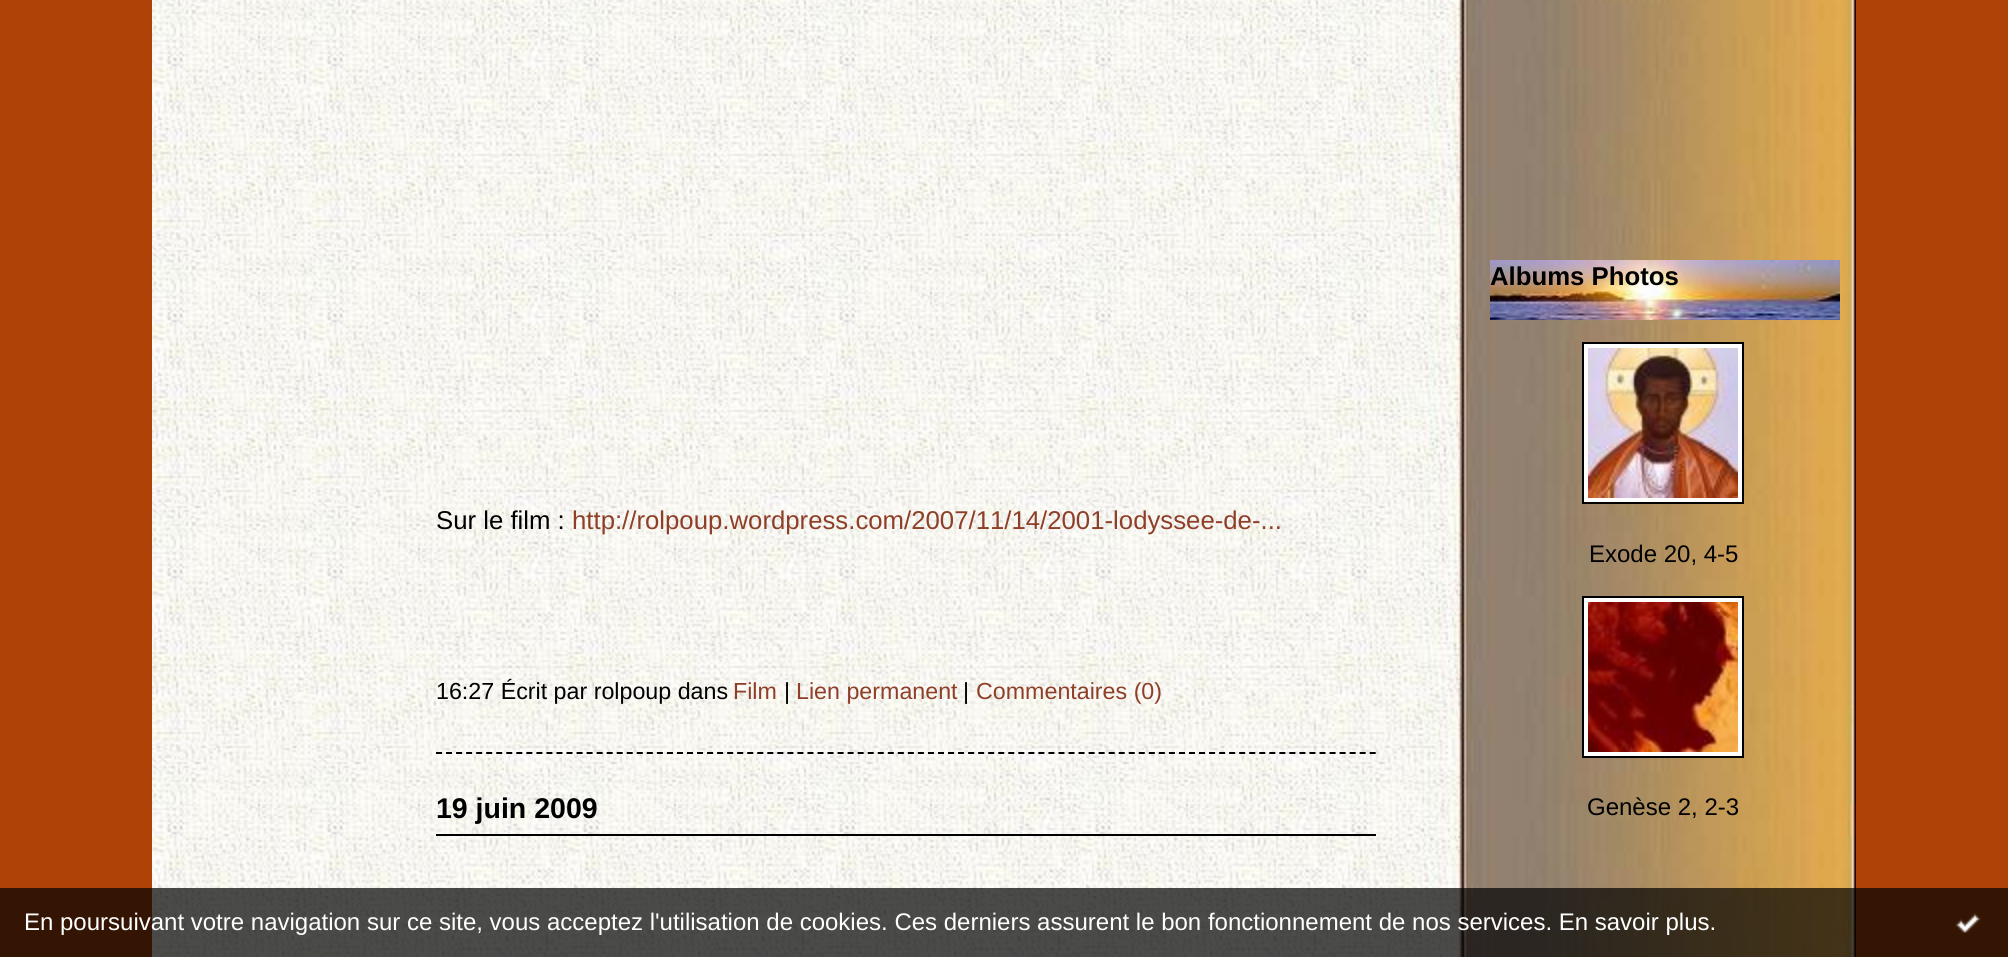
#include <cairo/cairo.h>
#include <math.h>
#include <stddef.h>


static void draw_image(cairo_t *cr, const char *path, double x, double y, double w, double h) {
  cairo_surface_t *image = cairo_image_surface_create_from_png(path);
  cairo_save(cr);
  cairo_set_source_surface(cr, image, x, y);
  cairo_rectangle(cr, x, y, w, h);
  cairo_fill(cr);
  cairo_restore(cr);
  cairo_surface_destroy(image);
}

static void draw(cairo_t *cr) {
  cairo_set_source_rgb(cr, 175 / 255.0, 66 / 255.0, 7 / 255.0);
  cairo_paint(cr);
  draw_image(cr, "images/1.png", 152, 0, 1704, 957);
  cairo_new_path(cr);
  cairo_move_to(cr, 436, 753);
  cairo_line_to(cr, 1376, 753);
  cairo_set_source_rgb(cr, 0, 0, 0);
  cairo_set_dash(cr, (double[]){6, 4.04}, 2, 0);
  cairo_stroke(cr);
  cairo_rectangle(cr, 436, 834, 940, 2);
  cairo_fill(cr);
  draw_image(cr, "images/2.png", 1490, 260, 350, 60);
  cairo_set_source_rgb(cr, 1, 1, 1);
  cairo_rectangle(cr, 1583, 343, 160, 160);
  cairo_fill_preserve(cr);
  cairo_set_source_rgb(cr, 0, 0, 0);
  cairo_set_dash(cr, NULL, 0, 0);
  cairo_stroke(cr);
  draw_image(cr, "images/3.png", 1588, 348, 150, 150);
  cairo_set_source_rgb(cr, 1, 1, 1);
  cairo_rectangle(cr, 1583, 597, 160, 160);
  cairo_fill_preserve(cr);
  cairo_set_source_rgb(cr, 0, 0, 0);
  cairo_stroke(cr);
  draw_image(cr, "images/4.png", 1588, 602, 150, 150);
  cairo_set_source_rgba(cr, 0, 0, 0, 0.7);
  cairo_rectangle(cr, 0, 888, 2008, 69);
  cairo_fill(cr);
  draw_image(cr, "images/5.png", 1955, 913, 26, 20);
  cairo_select_font_face(cr, "Liberation Sans", CAIRO_FONT_SLANT_NORMAL, CAIRO_FONT_WEIGHT_NORMAL);
  cairo_set_font_size(cr, 25.75);
  cairo_set_source_rgb(cr, 0, 0, 0);
  cairo_move_to(cr, 436, 529);
  cairo_show_text(cr, "Sur le film :");
  cairo_set_source_rgb(cr, 143 / 255.0, 63 / 255.0, 40 / 255.0);
  cairo_move_to(cr, 572, 529);
  cairo_show_text(cr, "http://rolpoup.wordpress.com/2007/11/14/2001-lodyssee-de-...");
  cairo_set_font_size(cr, 23.25);
  cairo_set_source_rgb(cr, 0, 0, 0);
  cairo_move_to(cr, 436, 699);
  cairo_show_text(cr, "16:27 Écrit par rolpoup dans");
  cairo_set_source_rgb(cr, 143 / 255.0, 63 / 255.0, 40 / 255.0);
  cairo_move_to(cr, 733, 699);
  cairo_show_text(cr, "Film");
  cairo_set_source_rgb(cr, 0, 0, 0);
  cairo_move_to(cr, 784, 699);
  cairo_show_text(cr, "|");
  cairo_set_source_rgb(cr, 143 / 255.0, 63 / 255.0, 40 / 255.0);
  cairo_move_to(cr, 796, 699);
  cairo_show_text(cr, "Lien permanent");
  cairo_set_source_rgb(cr, 0, 0, 0);
  cairo_move_to(cr, 963, 699);
  cairo_show_text(cr, "|");
  cairo_set_source_rgb(cr, 143 / 255.0, 63 / 255.0, 40 / 255.0);
  cairo_move_to(cr, 976, 699);
  cairo_show_text(cr, "Commentaires (0)");
  cairo_select_font_face(cr, "Liberation Sans", CAIRO_FONT_SLANT_NORMAL, CAIRO_FONT_WEIGHT_BOLD);
  cairo_set_font_size(cr, 28.5);
  cairo_set_source_rgb(cr, 0, 0, 0);
  cairo_move_to(cr, 436, 818);
  cairo_show_text(cr, "19 juin 2009");
  cairo_set_font_size(cr, 25.75);
  cairo_move_to(cr, 1490, 285);
  cairo_show_text(cr, "Albums Photos");
  cairo_select_font_face(cr, "Liberation Sans", CAIRO_FONT_SLANT_NORMAL, CAIRO_FONT_WEIGHT_NORMAL);
  cairo_set_font_size(cr, 24);
  cairo_move_to(cr, 1589, 562);
  cairo_show_text(cr, "Exode 20, 4-5");
  cairo_move_to(cr, 1587, 815);
  cairo_show_text(cr, "Genèse 2, 2-3");
  cairo_set_source_rgb(cr, 1, 1, 1);
  cairo_move_to(cr, 24, 930);
  cairo_show_text(cr, "En poursuivant votre navigation sur ce site, vous acceptez l'utilisation de cookies. Ces derniers assurent le bon fonctionnement de nos services. En savoir plus.");
}

int main(void) {
  cairo_surface_t *surface = cairo_image_surface_create(CAIRO_FORMAT_RGB24, 2008, 957);
  cairo_t *cr = cairo_create(surface);
  cairo_font_options_t *options = cairo_font_options_create();
  cairo_font_options_set_hint_metrics(options, CAIRO_HINT_METRICS_OFF);
  cairo_font_options_set_hint_style(options, CAIRO_HINT_STYLE_NONE);
  cairo_set_font_options(cr, options);
  cairo_set_miter_limit(cr, 4);
  draw(cr);
  cairo_surface_write_to_png(surface, "out.png");
  cairo_font_options_destroy(options);
  cairo_destroy(cr);
  cairo_surface_destroy(surface);
  return 0;
}
